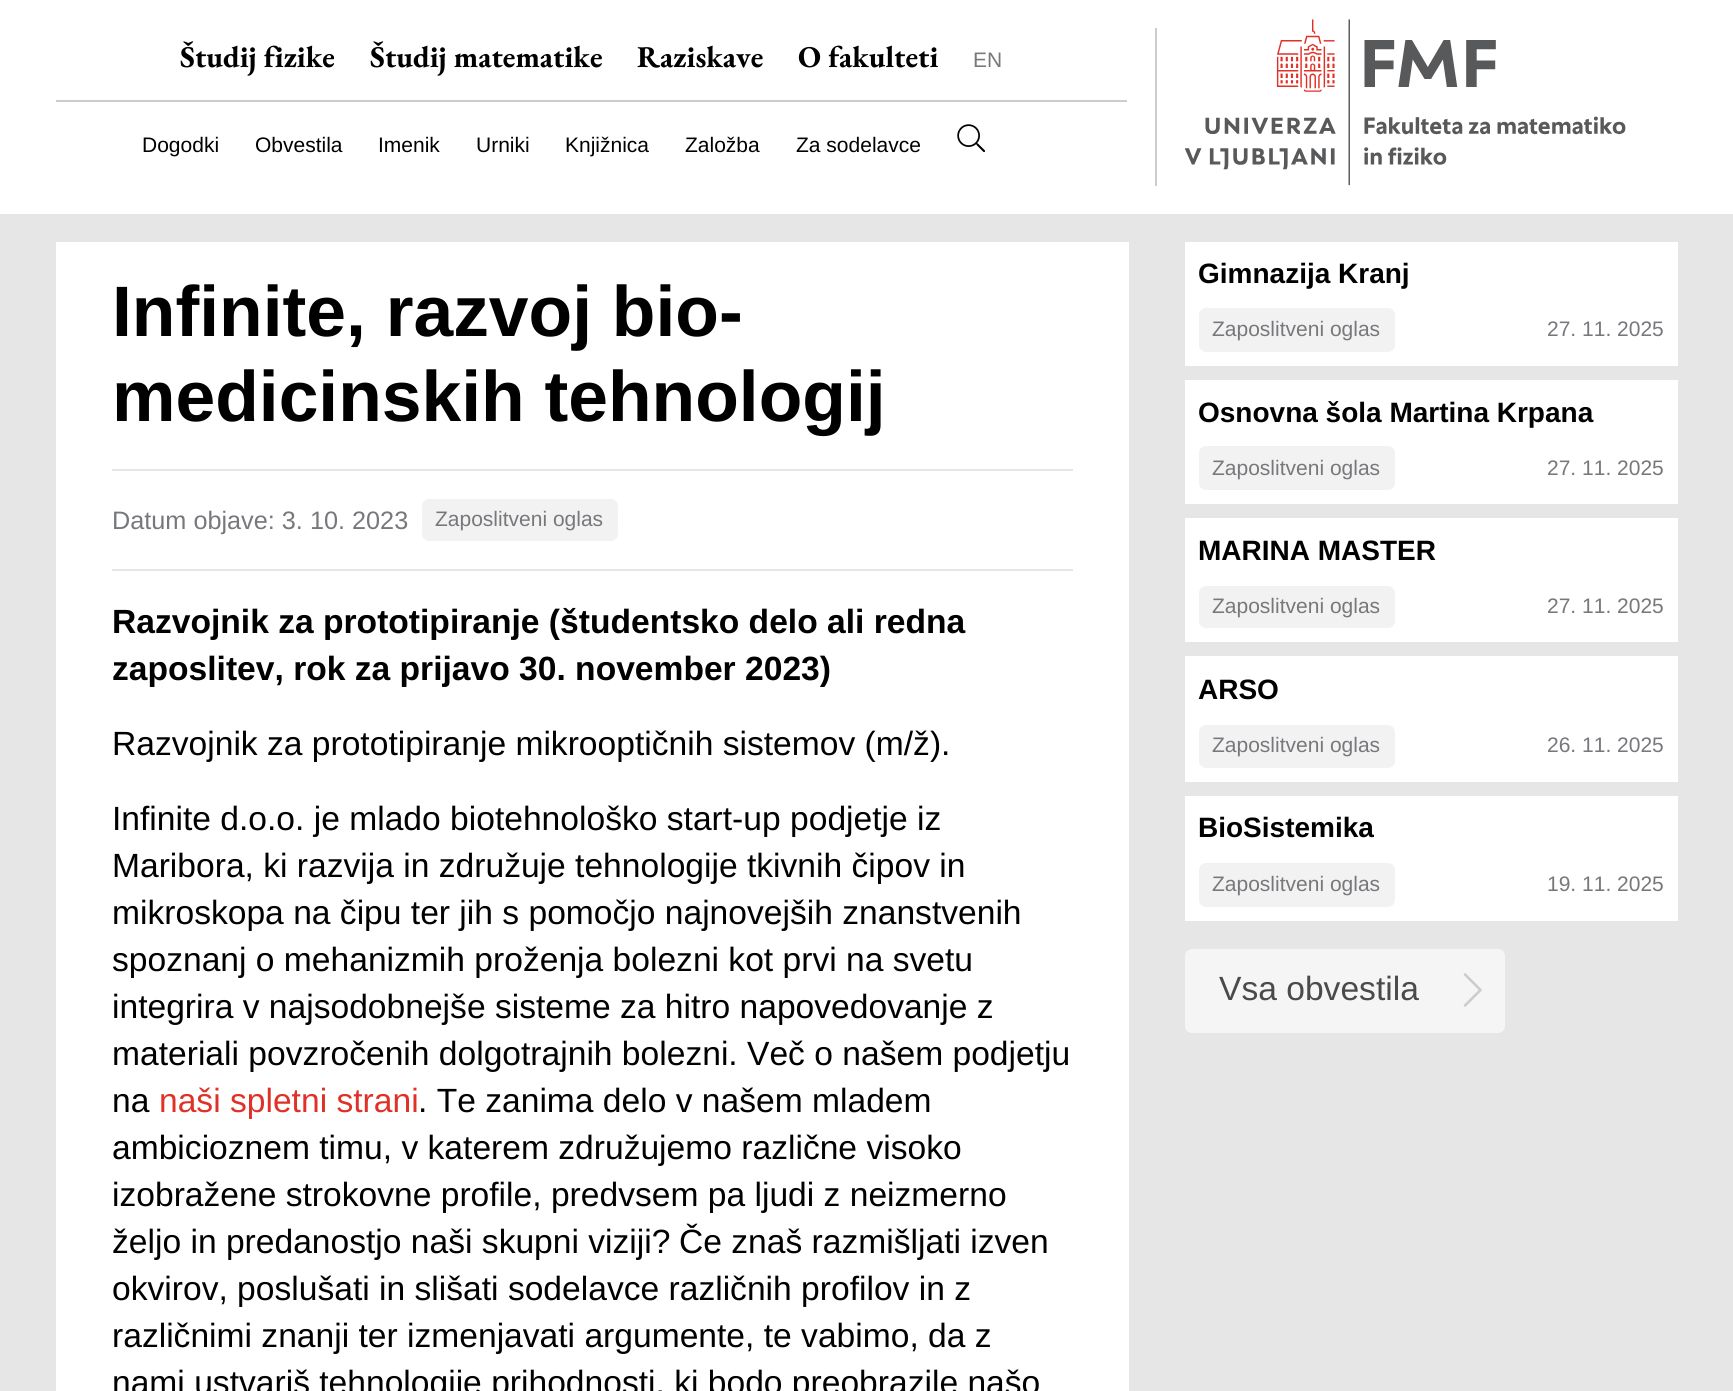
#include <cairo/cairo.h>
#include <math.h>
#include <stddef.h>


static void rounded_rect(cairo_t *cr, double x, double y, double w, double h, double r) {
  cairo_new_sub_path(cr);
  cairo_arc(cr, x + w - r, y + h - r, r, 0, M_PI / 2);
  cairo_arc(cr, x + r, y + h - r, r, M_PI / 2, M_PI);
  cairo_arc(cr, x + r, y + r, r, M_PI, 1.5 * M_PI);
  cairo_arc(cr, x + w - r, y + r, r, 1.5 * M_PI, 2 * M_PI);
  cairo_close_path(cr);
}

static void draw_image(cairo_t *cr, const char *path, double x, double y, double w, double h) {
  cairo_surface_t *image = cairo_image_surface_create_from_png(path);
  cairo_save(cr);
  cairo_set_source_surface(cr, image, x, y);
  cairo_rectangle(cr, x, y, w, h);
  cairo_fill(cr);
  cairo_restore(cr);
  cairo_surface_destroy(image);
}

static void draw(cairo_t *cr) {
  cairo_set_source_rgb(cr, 230 / 255.0, 230 / 255.0, 230 / 255.0);
  cairo_paint(cr);
  cairo_set_source_rgb(cr, 1, 1, 1);
  cairo_rectangle(cr, 0, 0, 1733, 214);
  cairo_fill(cr);
  cairo_set_source_rgb(cr, 204 / 255.0, 204 / 255.0, 204 / 255.0);
  cairo_rectangle(cr, 1155, 28, 2, 158);
  cairo_fill(cr);
  cairo_rectangle(cr, 56, 100, 1071, 2);
  cairo_fill(cr);
  draw_image(cr, "images/1.png", 957, 124, 28, 28);
  draw_image(cr, "images/2.png", 1185, 19, 441, 167);
  cairo_set_source_rgb(cr, 1, 1, 1);
  cairo_rectangle(cr, 56, 242, 1073, 1149);
  cairo_fill(cr);
  cairo_set_source_rgb(cr, 230 / 255.0, 230 / 255.0, 230 / 255.0);
  cairo_rectangle(cr, 112, 469, 961, 2);
  cairo_fill(cr);
  cairo_rectangle(cr, 112, 569, 961, 2);
  cairo_fill(cr);
  cairo_set_source_rgb(cr, 242 / 255.0, 242 / 255.0, 242 / 255.0);
  rounded_rect(cr, 422, 499, 196, 42, 7);
  cairo_fill(cr);
  cairo_set_source_rgb(cr, 1, 1, 1);
  cairo_rectangle(cr, 1185, 242, 493, 124);
  cairo_fill(cr);
  cairo_set_source_rgb(cr, 242 / 255.0, 242 / 255.0, 242 / 255.0);
  rounded_rect(cr, 1199, 308, 196, 44, 7);
  cairo_fill(cr);
  cairo_set_source_rgb(cr, 1, 1, 1);
  cairo_rectangle(cr, 1185, 380, 493, 124);
  cairo_fill(cr);
  cairo_set_source_rgb(cr, 242 / 255.0, 242 / 255.0, 242 / 255.0);
  rounded_rect(cr, 1199, 446, 196, 44, 7);
  cairo_fill(cr);
  cairo_set_source_rgb(cr, 1, 1, 1);
  cairo_rectangle(cr, 1185, 518, 493, 124);
  cairo_fill(cr);
  cairo_set_source_rgb(cr, 242 / 255.0, 242 / 255.0, 242 / 255.0);
  rounded_rect(cr, 1199, 586, 196, 42, 7);
  cairo_fill(cr);
  cairo_set_source_rgb(cr, 1, 1, 1);
  cairo_rectangle(cr, 1185, 656, 493, 126);
  cairo_fill(cr);
  cairo_set_source_rgb(cr, 242 / 255.0, 242 / 255.0, 242 / 255.0);
  rounded_rect(cr, 1199, 725, 196, 43, 7);
  cairo_fill(cr);
  cairo_set_source_rgb(cr, 1, 1, 1);
  cairo_rectangle(cr, 1185, 796, 493, 125);
  cairo_fill(cr);
  cairo_set_source_rgb(cr, 242 / 255.0, 242 / 255.0, 242 / 255.0);
  rounded_rect(cr, 1199, 863, 196, 44, 7);
  cairo_fill(cr);
  cairo_set_source_rgb(cr, 245 / 255.0, 245 / 255.0, 245 / 255.0);
  rounded_rect(cr, 1185, 949, 320, 84, 7);
  cairo_fill(cr);
  cairo_new_path(cr);
  cairo_move_to(cr, 1465, 1005.5);
  cairo_line_to(cr, 1480.5, 990);
  cairo_line_to(cr, 1465, 974.5);
  cairo_set_source_rgb(cr, 204 / 255.0, 204 / 255.0, 204 / 255.0);
  cairo_set_line_width(cr, 2.6);
  cairo_set_line_cap(cr, CAIRO_LINE_CAP_ROUND);
  cairo_set_line_join(cr, CAIRO_LINE_JOIN_ROUND);
  cairo_stroke(cr);
  cairo_select_font_face(cr, "EB Garamond", CAIRO_FONT_SLANT_NORMAL, CAIRO_FONT_WEIGHT_BOLD);
  cairo_set_font_size(cr, 30.25);
  cairo_set_source_rgb(cr, 0, 0, 0);
  cairo_move_to(cr, 180, 67);
  cairo_show_text(cr, "Študij fizike");
  cairo_move_to(cr, 370, 67);
  cairo_show_text(cr, "Študij matematike");
  cairo_move_to(cr, 637, 67);
  cairo_show_text(cr, "Raziskave");
  cairo_move_to(cr, 798, 67);
  cairo_show_text(cr, "O fakulteti");
  cairo_select_font_face(cr, "Liberation Sans", CAIRO_FONT_SLANT_NORMAL, CAIRO_FONT_WEIGHT_NORMAL);
  cairo_set_font_size(cr, 21);
  cairo_set_source_rgb(cr, 119 / 255.0, 120 / 255.0, 123 / 255.0);
  cairo_move_to(cr, 973, 67);
  cairo_show_text(cr, "EN");
  cairo_set_source_rgb(cr, 0, 0, 0);
  cairo_move_to(cr, 142, 152);
  cairo_show_text(cr, "Dogodki");
  cairo_move_to(cr, 255, 152);
  cairo_show_text(cr, "Obvestila");
  cairo_move_to(cr, 378, 152);
  cairo_show_text(cr, "Imenik");
  cairo_move_to(cr, 476, 152);
  cairo_show_text(cr, "Urniki");
  cairo_move_to(cr, 565, 152);
  cairo_show_text(cr, "Knjižnica");
  cairo_move_to(cr, 685, 152);
  cairo_show_text(cr, "Založba");
  cairo_move_to(cr, 796, 152);
  cairo_show_text(cr, "Za sodelavce");
  cairo_select_font_face(cr, "Liberation Sans", CAIRO_FONT_SLANT_NORMAL, CAIRO_FONT_WEIGHT_BOLD);
  cairo_set_font_size(cr, 71.4);
  cairo_move_to(cr, 112, 336);
  cairo_show_text(cr, "Infinite, razvoj bio-");
  cairo_move_to(cr, 112, 421);
  cairo_show_text(cr, "medicinskih tehnologij");
  cairo_select_font_face(cr, "Liberation Sans", CAIRO_FONT_SLANT_NORMAL, CAIRO_FONT_WEIGHT_NORMAL);
  cairo_set_font_size(cr, 25.25);
  cairo_set_source_rgb(cr, 119 / 255.0, 120 / 255.0, 123 / 255.0);
  cairo_move_to(cr, 112, 529);
  cairo_show_text(cr, "Datum objave: 3. 10. 2023");
  cairo_set_font_size(cr, 21);
  cairo_move_to(cr, 435, 526);
  cairo_show_text(cr, "Zaposlitveni oglas");
  cairo_select_font_face(cr, "Liberation Sans", CAIRO_FONT_SLANT_NORMAL, CAIRO_FONT_WEIGHT_BOLD);
  cairo_set_font_size(cr, 33.6);
  cairo_set_source_rgb(cr, 0, 0, 0);
  cairo_move_to(cr, 112, 633);
  cairo_show_text(cr, "Razvojnik za prototipiranje (študentsko delo ali redna");
  cairo_move_to(cr, 112, 680);
  cairo_show_text(cr, "zaposlitev, rok za prijavo 30. november 2023)");
  cairo_select_font_face(cr, "Liberation Sans", CAIRO_FONT_SLANT_NORMAL, CAIRO_FONT_WEIGHT_NORMAL);
  cairo_move_to(cr, 112, 755);
  cairo_show_text(cr, "Razvojnik za prototipiranje mikrooptičnih sistemov (m/ž).");
  cairo_move_to(cr, 112, 830);
  cairo_show_text(cr, "Infinite d.o.o. je mlado biotehnološko start-up podjetje iz");
  cairo_move_to(cr, 112, 877);
  cairo_show_text(cr, "Maribora, ki razvija in združuje tehnologije tkivnih čipov in");
  cairo_move_to(cr, 112, 924);
  cairo_show_text(cr, "mikroskopa na čipu ter jih s pomočjo najnovejših znanstvenih");
  cairo_move_to(cr, 112, 971);
  cairo_show_text(cr, "spoznanj o mehanizmih proženja bolezni kot prvi na svetu");
  cairo_move_to(cr, 112, 1018);
  cairo_show_text(cr, "integrira v najsodobnejše sisteme za hitro napovedovanje z");
  cairo_move_to(cr, 112, 1065);
  cairo_show_text(cr, "materiali povzročenih dolgotrajnih bolezni. Več o našem podjetju");
  cairo_move_to(cr, 112, 1112);
  cairo_show_text(cr, "na");
  cairo_set_source_rgb(cr, 223 / 255.0, 49 / 255.0, 39 / 255.0);
  cairo_move_to(cr, 159, 1112);
  cairo_show_text(cr, "naši spletni strani");
  cairo_set_source_rgb(cr, 0, 0, 0);
  cairo_move_to(cr, 418, 1112);
  cairo_show_text(cr, ". Te zanima delo v našem mladem");
  cairo_move_to(cr, 112, 1159);
  cairo_show_text(cr, "ambicioznem timu, v katerem združujemo različne visoko");
  cairo_move_to(cr, 112, 1206);
  cairo_show_text(cr, "izobražene strokovne profile, predvsem pa ljudi z neizmerno");
  cairo_move_to(cr, 112, 1253);
  cairo_show_text(cr, "željo in predanostjo naši skupni viziji?");
  cairo_move_to(cr, 679, 1253);
  cairo_show_text(cr, "Če znaš razmišljati izven");
  cairo_move_to(cr, 112, 1300);
  cairo_show_text(cr, "okvirov, poslušati in slišati sodelavce različnih profilov in z");
  cairo_move_to(cr, 112, 1347);
  cairo_show_text(cr, "različnimi znanji ter izmenjavati argumente, te vabimo, da z");
  cairo_move_to(cr, 112, 1394);
  cairo_show_text(cr, "nami ustvariš tehnologije prihodnosti, ki bodo preobrazile našo");
  cairo_select_font_face(cr, "Liberation Sans", CAIRO_FONT_SLANT_NORMAL, CAIRO_FONT_WEIGHT_BOLD);
  cairo_set_font_size(cr, 28);
  cairo_move_to(cr, 1198, 283);
  cairo_show_text(cr, "Gimnazija Kranj");
  cairo_select_font_face(cr, "Liberation Sans", CAIRO_FONT_SLANT_NORMAL, CAIRO_FONT_WEIGHT_NORMAL);
  cairo_set_font_size(cr, 21);
  cairo_set_source_rgb(cr, 119 / 255.0, 120 / 255.0, 123 / 255.0);
  cairo_move_to(cr, 1212, 336);
  cairo_show_text(cr, "Zaposlitveni oglas");
  cairo_move_to(cr, 1547, 336);
  cairo_show_text(cr, "27. 11. 2025");
  cairo_select_font_face(cr, "Liberation Sans", CAIRO_FONT_SLANT_NORMAL, CAIRO_FONT_WEIGHT_BOLD);
  cairo_set_font_size(cr, 28);
  cairo_set_source_rgb(cr, 0, 0, 0);
  cairo_move_to(cr, 1198, 422);
  cairo_show_text(cr, "Osnovna šola Martina Krpana");
  cairo_select_font_face(cr, "Liberation Sans", CAIRO_FONT_SLANT_NORMAL, CAIRO_FONT_WEIGHT_NORMAL);
  cairo_set_font_size(cr, 21);
  cairo_set_source_rgb(cr, 119 / 255.0, 120 / 255.0, 123 / 255.0);
  cairo_move_to(cr, 1212, 475);
  cairo_show_text(cr, "Zaposlitveni oglas");
  cairo_move_to(cr, 1547, 475);
  cairo_show_text(cr, "27. 11. 2025");
  cairo_select_font_face(cr, "Liberation Sans", CAIRO_FONT_SLANT_NORMAL, CAIRO_FONT_WEIGHT_BOLD);
  cairo_set_font_size(cr, 28);
  cairo_set_source_rgb(cr, 0, 0, 0);
  cairo_move_to(cr, 1198, 560);
  cairo_show_text(cr, "MARINA MASTER");
  cairo_select_font_face(cr, "Liberation Sans", CAIRO_FONT_SLANT_NORMAL, CAIRO_FONT_WEIGHT_NORMAL);
  cairo_set_font_size(cr, 21);
  cairo_set_source_rgb(cr, 119 / 255.0, 120 / 255.0, 123 / 255.0);
  cairo_move_to(cr, 1212, 613);
  cairo_show_text(cr, "Zaposlitveni oglas");
  cairo_move_to(cr, 1547, 613);
  cairo_show_text(cr, "27. 11. 2025");
  cairo_select_font_face(cr, "Liberation Sans", CAIRO_FONT_SLANT_NORMAL, CAIRO_FONT_WEIGHT_BOLD);
  cairo_set_font_size(cr, 28);
  cairo_set_source_rgb(cr, 0, 0, 0);
  cairo_move_to(cr, 1198, 699);
  cairo_show_text(cr, "ARSO");
  cairo_select_font_face(cr, "Liberation Sans", CAIRO_FONT_SLANT_NORMAL, CAIRO_FONT_WEIGHT_NORMAL);
  cairo_set_font_size(cr, 21);
  cairo_set_source_rgb(cr, 119 / 255.0, 120 / 255.0, 123 / 255.0);
  cairo_move_to(cr, 1212, 752);
  cairo_show_text(cr, "Zaposlitveni oglas");
  cairo_move_to(cr, 1547, 752);
  cairo_show_text(cr, "26. 11. 2025");
  cairo_select_font_face(cr, "Liberation Sans", CAIRO_FONT_SLANT_NORMAL, CAIRO_FONT_WEIGHT_BOLD);
  cairo_set_font_size(cr, 28);
  cairo_set_source_rgb(cr, 0, 0, 0);
  cairo_move_to(cr, 1198, 837);
  cairo_show_text(cr, "BioSistemika");
  cairo_select_font_face(cr, "Liberation Sans", CAIRO_FONT_SLANT_NORMAL, CAIRO_FONT_WEIGHT_NORMAL);
  cairo_set_font_size(cr, 21);
  cairo_set_source_rgb(cr, 119 / 255.0, 120 / 255.0, 123 / 255.0);
  cairo_move_to(cr, 1212, 891);
  cairo_show_text(cr, "Zaposlitveni oglas");
  cairo_move_to(cr, 1547, 891);
  cairo_show_text(cr, "19. 11. 2025");
  cairo_set_font_size(cr, 33.6);
  cairo_set_source_rgb(cr, 74 / 255.0, 74 / 255.0, 74 / 255.0);
  cairo_move_to(cr, 1219, 1000);
  cairo_show_text(cr, "Vsa obvestila");
}

int main(void) {
  cairo_surface_t *surface = cairo_image_surface_create(CAIRO_FORMAT_RGB24, 1733, 1391);
  cairo_t *cr = cairo_create(surface);
  cairo_font_options_t *options = cairo_font_options_create();
  cairo_font_options_set_hint_metrics(options, CAIRO_HINT_METRICS_OFF);
  cairo_font_options_set_hint_style(options, CAIRO_HINT_STYLE_NONE);
  cairo_set_font_options(cr, options);
  cairo_set_miter_limit(cr, 4);
  draw(cr);
  cairo_surface_write_to_png(surface, "out.png");
  cairo_font_options_destroy(options);
  cairo_destroy(cr);
  cairo_surface_destroy(surface);
  return 0;
}
